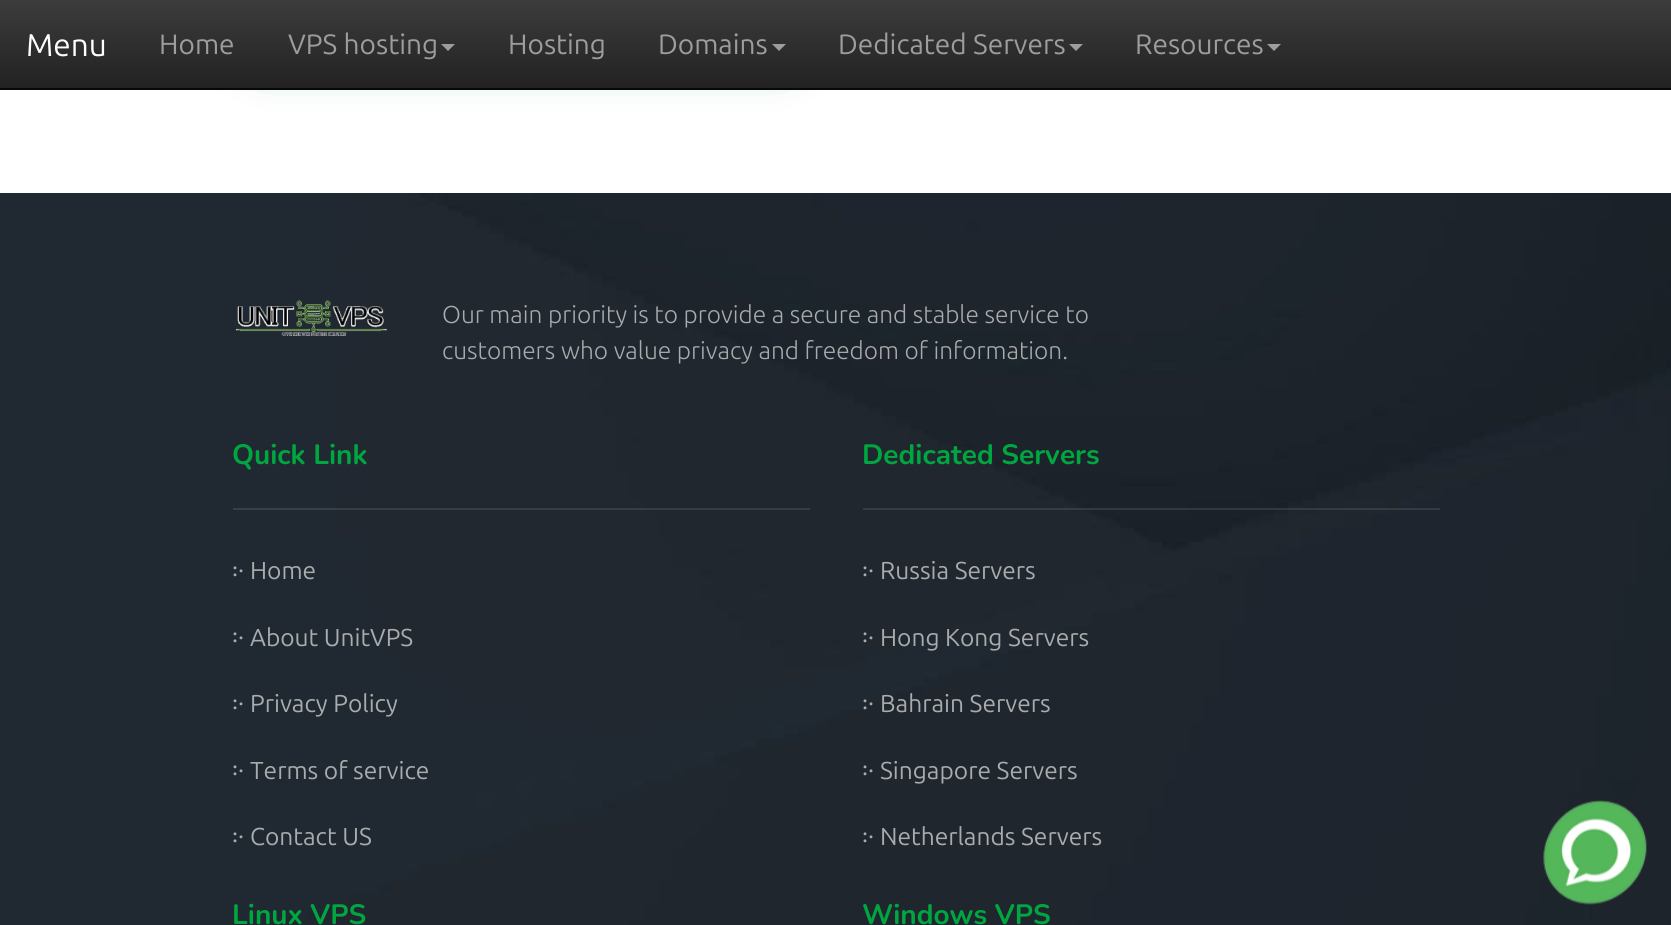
#include <cairo/cairo.h>
#include <math.h>
#include <stddef.h>


static void rounded_rect(cairo_t *cr, double x, double y, double w, double h, double r) {
  cairo_new_sub_path(cr);
  cairo_arc(cr, x + w - r, y + h - r, r, 0, M_PI / 2);
  cairo_arc(cr, x + r, y + h - r, r, M_PI / 2, M_PI);
  cairo_arc(cr, x + r, y + r, r, M_PI, 1.5 * M_PI);
  cairo_arc(cr, x + w - r, y + r, r, 1.5 * M_PI, 2 * M_PI);
  cairo_close_path(cr);
}

static void draw_shadow(cairo_t *cr, double x, double y, double w, double h, double r, double blur, double alpha) {
  cairo_push_group_with_content(cr, CAIRO_CONTENT_ALPHA);
  cairo_set_operator(cr, CAIRO_OPERATOR_SOURCE);
  for (int i = 15; i >= -15 && fmin(w, h) + blur * i / 3 > 0; i -= 2) {
    double e = blur * i / 6;
    cairo_set_source_rgba(cr, 0, 0, 0, alpha * erfc((i - 1) / 8.5) / 2);
    rounded_rect(cr, x - e, y - e, w + 2 * e, h + 2 * e, fmax(0, fmin(r + e + blur * .6, fmin(w, h) / 2 + e)));
    cairo_fill(cr);
  }
  cairo_pattern_t *soft = cairo_pop_group(cr);
  cairo_mask(cr, soft);
  cairo_pattern_destroy(soft);
}

static void draw_image(cairo_t *cr, const char *path, double x, double y, double w, double h) {
  cairo_surface_t *image = cairo_image_surface_create_from_png(path);
  cairo_save(cr);
  cairo_set_source_surface(cr, image, x, y);
  cairo_rectangle(cr, x, y, w, h);
  cairo_fill(cr);
  cairo_restore(cr);
  cairo_surface_destroy(image);
}

static void draw(cairo_t *cr) {
  cairo_pattern_t *gradient;
  cairo_set_source_rgb(cr, 1, 1, 1);
  cairo_paint(cr);
  cairo_set_source_rgb(cr, 0, 166 / 255.0, 63 / 255.0);
  draw_shadow(cr, 243, -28, 560, 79, 39.5, 24.5, 1);
  gradient = cairo_pattern_create_linear(836, 0, 836, 88);
  cairo_pattern_add_color_stop_rgba(gradient, 0, 60 / 255.0, 60 / 255.0, 60 / 255.0, 1);
  cairo_pattern_add_color_stop_rgba(gradient, 1, 34 / 255.0, 34 / 255.0, 34 / 255.0, 1);
  cairo_set_source(cr, gradient);
  cairo_pattern_destroy(gradient);
  cairo_rectangle(cr, 0, 0, 1671, 88);
  cairo_fill(cr);
  cairo_set_source_rgb(cr, 8 / 255.0, 8 / 255.0, 8 / 255.0);
  cairo_rectangle(cr, 0, 88, 1671, 2);
  cairo_fill(cr);
  cairo_set_source_rgb(cr, 157 / 255.0, 157 / 255.0, 157 / 255.0);
  cairo_new_path(cr);
  cairo_move_to(cr, 441, 44);
  cairo_line_to(cr, 455, 44);
  cairo_line_to(cr, 448, 51);
  cairo_close_path(cr);
  cairo_fill(cr);
  cairo_new_path(cr);
  cairo_move_to(cr, 772, 44);
  cairo_line_to(cr, 786, 44);
  cairo_line_to(cr, 779, 51);
  cairo_close_path(cr);
  cairo_fill(cr);
  cairo_new_path(cr);
  cairo_move_to(cr, 1069, 44);
  cairo_line_to(cr, 1083, 44);
  cairo_line_to(cr, 1076, 51);
  cairo_close_path(cr);
  cairo_fill(cr);
  cairo_new_path(cr);
  cairo_move_to(cr, 1267, 44);
  cairo_line_to(cr, 1281, 44);
  cairo_line_to(cr, 1274, 51);
  cairo_close_path(cr);
  cairo_fill(cr);
  draw_image(cr, "images/1.png", 0, 193, 1671, 732);
  draw_image(cr, "images/2.png", 236, 300, 151, 36);
  cairo_set_source_rgba(cr, 1, 1, 1, 0.1);
  cairo_rectangle(cr, 233, 508, 577, 2);
  cairo_fill(cr);
  cairo_rectangle(cr, 863, 508, 577, 2);
  cairo_fill(cr);
  draw_image(cr, "images/3.png", 1543, 800, 104, 105);
  cairo_select_font_face(cr, "Ubuntu", CAIRO_FONT_SLANT_NORMAL, CAIRO_FONT_WEIGHT_NORMAL);
  cairo_set_font_size(cr, 31.5);
  cairo_set_source_rgb(cr, 1, 1, 1);
  cairo_move_to(cr, 26, 56);
  cairo_show_text(cr, "Menu");
  cairo_set_font_size(cr, 28);
  cairo_set_source_rgb(cr, 157 / 255.0, 157 / 255.0, 157 / 255.0);
  cairo_move_to(cr, 159, 54);
  cairo_show_text(cr, "Home");
  cairo_move_to(cr, 288, 54);
  cairo_show_text(cr, "VPS hosting");
  cairo_move_to(cr, 508, 54);
  cairo_show_text(cr, "Hosting");
  cairo_move_to(cr, 658, 54);
  cairo_show_text(cr, "Domains");
  cairo_move_to(cr, 838, 54);
  cairo_show_text(cr, "Dedicated Servers");
  cairo_move_to(cr, 1135, 54);
  cairo_show_text(cr, "Resources");
  cairo_select_font_face(cr, "Ubuntu Light", CAIRO_FONT_SLANT_NORMAL, CAIRO_FONT_WEIGHT_NORMAL);
  cairo_set_font_size(cr, 24.5);
  cairo_set_source_rgb(cr, 169 / 255.0, 171 / 255.0, 172 / 255.0);
  cairo_move_to(cr, 442, 323);
  cairo_show_text(cr, "Our main priority is to provide a secure and stable service to");
  cairo_move_to(cr, 442, 359);
  cairo_show_text(cr, "customers");
  cairo_move_to(cr, 561, 359);
  cairo_show_text(cr, "who value privacy and freedom of information.");
  cairo_select_font_face(cr, "Nunito", CAIRO_FONT_SLANT_NORMAL, CAIRO_FONT_WEIGHT_BOLD);
  cairo_set_font_size(cr, 28);
  cairo_set_source_rgb(cr, 0, 166 / 255.0, 63 / 255.0);
  cairo_move_to(cr, 232, 464);
  cairo_show_text(cr, "Quick Link");
  cairo_select_font_face(cr, "Ubuntu", CAIRO_FONT_SLANT_NORMAL, CAIRO_FONT_WEIGHT_NORMAL);
  cairo_set_font_size(cr, 24.5);
  cairo_set_source_rgb(cr, 169 / 255.0, 171 / 255.0, 172 / 255.0);
  cairo_move_to(cr, 232, 569);
  cairo_show_text(cr, ".");
  cairo_move_to(cr, 238, 572);
  cairo_show_text(cr, ".");
  cairo_move_to(cr, 232, 576);
  cairo_show_text(cr, ".");
  cairo_move_to(cr, 250, 579);
  cairo_show_text(cr, "Home");
  cairo_move_to(cr, 232, 635);
  cairo_show_text(cr, ".");
  cairo_move_to(cr, 238, 639);
  cairo_show_text(cr, ".");
  cairo_move_to(cr, 232, 642);
  cairo_show_text(cr, ".");
  cairo_move_to(cr, 250, 646);
  cairo_show_text(cr, "About UnitVPS");
  cairo_move_to(cr, 232, 702);
  cairo_show_text(cr, ".");
  cairo_move_to(cr, 238, 705);
  cairo_show_text(cr, ".");
  cairo_move_to(cr, 232, 709);
  cairo_show_text(cr, ".");
  cairo_move_to(cr, 250, 712);
  cairo_show_text(cr, "Privacy Policy");
  cairo_move_to(cr, 232, 768);
  cairo_show_text(cr, ".");
  cairo_move_to(cr, 238, 772);
  cairo_show_text(cr, ".");
  cairo_move_to(cr, 232, 775);
  cairo_show_text(cr, ".");
  cairo_move_to(cr, 250, 779);
  cairo_show_text(cr, "Terms of service");
  cairo_move_to(cr, 232, 835);
  cairo_show_text(cr, ".");
  cairo_move_to(cr, 238, 838);
  cairo_show_text(cr, ".");
  cairo_move_to(cr, 232, 842);
  cairo_show_text(cr, ".");
  cairo_move_to(cr, 250, 845);
  cairo_show_text(cr, "Contact US");
  cairo_select_font_face(cr, "Nunito", CAIRO_FONT_SLANT_NORMAL, CAIRO_FONT_WEIGHT_BOLD);
  cairo_set_font_size(cr, 28);
  cairo_set_source_rgb(cr, 0, 166 / 255.0, 63 / 255.0);
  cairo_move_to(cr, 862, 464);
  cairo_show_text(cr, "Dedicated Servers");
  cairo_select_font_face(cr, "Ubuntu", CAIRO_FONT_SLANT_NORMAL, CAIRO_FONT_WEIGHT_NORMAL);
  cairo_set_font_size(cr, 24.5);
  cairo_set_source_rgb(cr, 169 / 255.0, 171 / 255.0, 172 / 255.0);
  cairo_move_to(cr, 862, 569);
  cairo_show_text(cr, ".");
  cairo_move_to(cr, 868, 572);
  cairo_show_text(cr, ".");
  cairo_move_to(cr, 862, 576);
  cairo_show_text(cr, ".");
  cairo_move_to(cr, 880, 579);
  cairo_show_text(cr, "Russia Servers");
  cairo_move_to(cr, 862, 635);
  cairo_show_text(cr, ".");
  cairo_move_to(cr, 868, 639);
  cairo_show_text(cr, ".");
  cairo_move_to(cr, 862, 642);
  cairo_show_text(cr, ".");
  cairo_move_to(cr, 880, 646);
  cairo_show_text(cr, "Hong Kong Servers");
  cairo_move_to(cr, 862, 702);
  cairo_show_text(cr, ".");
  cairo_move_to(cr, 868, 705);
  cairo_show_text(cr, ".");
  cairo_move_to(cr, 862, 709);
  cairo_show_text(cr, ".");
  cairo_move_to(cr, 880, 712);
  cairo_show_text(cr, "Bahrain Servers");
  cairo_move_to(cr, 862, 768);
  cairo_show_text(cr, ".");
  cairo_move_to(cr, 868, 772);
  cairo_show_text(cr, ".");
  cairo_move_to(cr, 862, 775);
  cairo_show_text(cr, ".");
  cairo_move_to(cr, 880, 779);
  cairo_show_text(cr, "Singapore Servers");
  cairo_move_to(cr, 862, 835);
  cairo_show_text(cr, ".");
  cairo_move_to(cr, 868, 838);
  cairo_show_text(cr, ".");
  cairo_move_to(cr, 862, 842);
  cairo_show_text(cr, ".");
  cairo_move_to(cr, 880, 845);
  cairo_show_text(cr, "Netherlands Servers");
  cairo_select_font_face(cr, "Nunito", CAIRO_FONT_SLANT_NORMAL, CAIRO_FONT_WEIGHT_BOLD);
  cairo_set_font_size(cr, 28);
  cairo_set_source_rgb(cr, 0, 166 / 255.0, 63 / 255.0);
  cairo_move_to(cr, 232, 924);
  cairo_show_text(cr, "Linux VPS");
  cairo_move_to(cr, 862, 924);
  cairo_show_text(cr, "Windows VPS");
}

int main(void) {
  cairo_surface_t *surface = cairo_image_surface_create(CAIRO_FORMAT_RGB24, 1671, 925);
  cairo_t *cr = cairo_create(surface);
  cairo_font_options_t *options = cairo_font_options_create();
  cairo_font_options_set_hint_metrics(options, CAIRO_HINT_METRICS_OFF);
  cairo_font_options_set_hint_style(options, CAIRO_HINT_STYLE_NONE);
  cairo_set_font_options(cr, options);
  cairo_set_miter_limit(cr, 4);
  draw(cr);
  cairo_surface_write_to_png(surface, "out.png");
  cairo_font_options_destroy(options);
  cairo_destroy(cr);
  cairo_surface_destroy(surface);
  return 0;
}
